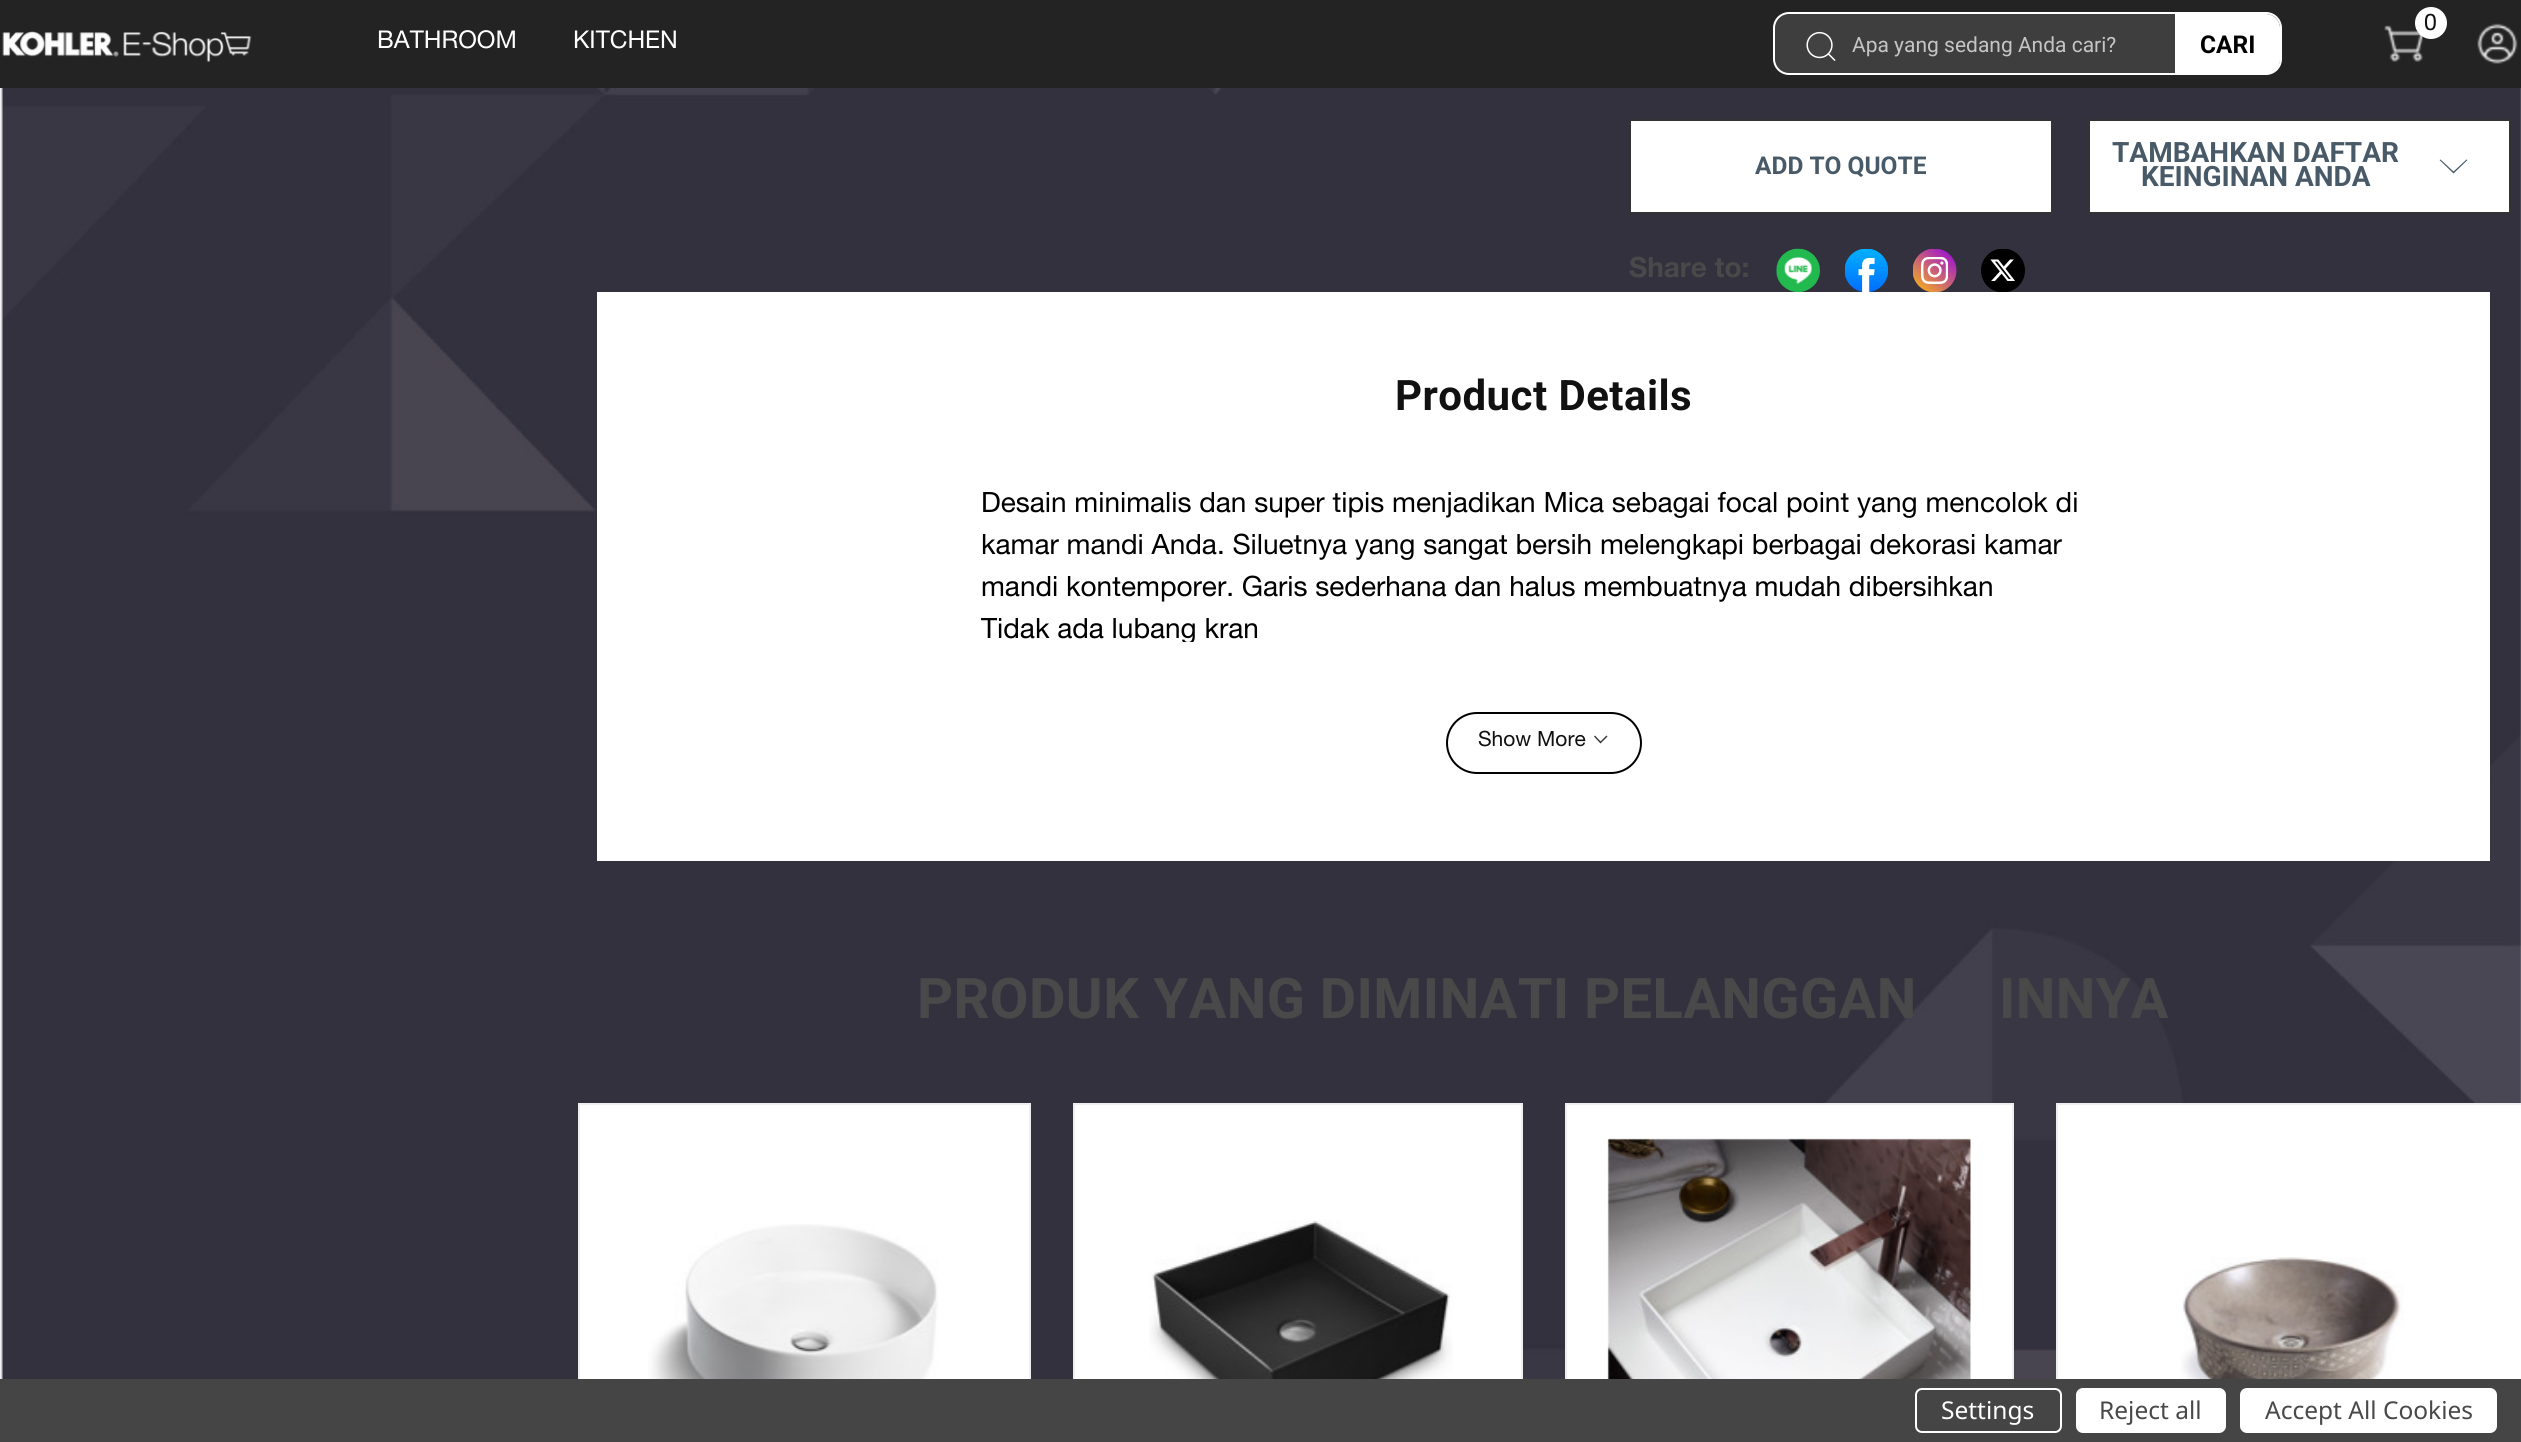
#include <cairo/cairo.h>
#include <math.h>
#include <stddef.h>


static void draw_spaced(cairo_t *cr, double x, double y, const char *s, double letter, double word) {
  cairo_move_to(cr, x, y);
  while (*s) {
    char ch[5] = {0};
    int n = 0;
    do ch[n++] = *s++; while ((*s & 0xC0) == 0x80);
    cairo_show_text(cr, ch);
    cairo_rel_move_to(cr, letter + word * (*ch == ' '), 0);
  }
}

static void rounded_rect(cairo_t *cr, double x, double y, double w, double h, double r) {
  cairo_new_sub_path(cr);
  cairo_arc(cr, x + w - r, y + h - r, r, 0, M_PI / 2);
  cairo_arc(cr, x + r, y + h - r, r, M_PI / 2, M_PI);
  cairo_arc(cr, x + r, y + r, r, M_PI, 1.5 * M_PI);
  cairo_arc(cr, x + w - r, y + r, r, 1.5 * M_PI, 2 * M_PI);
  cairo_close_path(cr);
}

static void draw_image(cairo_t *cr, const char *path, double x, double y, double w, double h) {
  cairo_surface_t *image = cairo_image_surface_create_from_png(path);
  cairo_save(cr);
  cairo_set_source_surface(cr, image, x, y);
  cairo_rectangle(cr, x, y, w, h);
  cairo_fill(cr);
  cairo_restore(cr);
  cairo_surface_destroy(image);
}

static void draw(cairo_t *cr) {
  cairo_set_source_rgb(cr, 1, 1, 1);
  cairo_paint(cr);
  draw_image(cr, "images/1.png", 0, 88, 2521, 1291);
  cairo_set_source_rgb(cr, 36 / 255.0, 35 / 255.0, 36 / 255.0);
  cairo_rectangle(cr, 0, 0, 2521, 88);
  cairo_fill(cr);
  draw_image(cr, "images/2.png", 2384, 25, 40, 37);
  cairo_set_source_rgb(cr, 1, 1, 1);
  cairo_arc(cr, 2431, 23, 16, 0, 2 * M_PI);
  cairo_fill(cr);
  draw_image(cr, "images/3.png", 2477, 23, 41, 41);
  draw_image(cr, "images/4.png", 2, 31, 250, 31);
  cairo_set_source_rgb(cr, 63 / 255.0, 62 / 255.0, 63 / 255.0);
  rounded_rect(cr, 1774, 13, 507, 61, 15);
  cairo_fill_preserve(cr);
  cairo_set_source_rgb(cr, 1, 1, 1);
  cairo_stroke(cr);
  draw_image(cr, "images/5.png", 1806, 31, 30, 30);
  cairo_new_path(cr);
  cairo_move_to(cr, 2175, 14);
  cairo_line_to(cr, 2266, 14);
  cairo_curve_to(cr, 2273.5, 14, 2280, 20.5, 2280, 28);
  cairo_line_to(cr, 2280, 60);
  cairo_curve_to(cr, 2280, 67.5, 2273.5, 74, 2266, 74);
  cairo_line_to(cr, 2175, 74);
  cairo_close_path(cr);
  cairo_fill(cr);
  cairo_rectangle(cr, 1630, 120, 422, 93);
  cairo_fill_preserve(cr);
  cairo_set_source_rgb(cr, 51 / 255.0, 51 / 255.0, 51 / 255.0);
  cairo_stroke(cr);
  cairo_set_source_rgb(cr, 1, 1, 1);
  cairo_rectangle(cr, 2089, 120, 421, 93);
  cairo_fill_preserve(cr);
  cairo_set_source_rgb(cr, 51 / 255.0, 51 / 255.0, 51 / 255.0);
  cairo_stroke(cr);
  cairo_set_source_rgb(cr, 72 / 255.0, 90 / 255.0, 103 / 255.0);
  cairo_set_fill_rule(cr, CAIRO_FILL_RULE_EVEN_ODD);
  cairo_new_path(cr);
  cairo_move_to(cr, 2453.5, 171.5);
  cairo_line_to(cr, 2466.5, 159.5);
  cairo_line_to(cr, 2467.5, 160);
  cairo_line_to(cr, 2453.5, 173.5);
  cairo_line_to(cr, 2439.5, 160);
  cairo_line_to(cr, 2440.5, 159.5);
  cairo_close_path(cr);
  cairo_fill(cr);
  cairo_set_source_rgb(cr, 1, 1, 1);
  cairo_rectangle(cr, 597, 292, 1893, 350);
  cairo_fill(cr);
  draw_image(cr, "images/6.png", 1776, 248, 44, 45);
  draw_image(cr, "images/7.png", 1845, 249, 43, 43);
  draw_image(cr, "images/8.png", 1913, 249, 44, 43);
  draw_image(cr, "images/9.png", 1981, 249, 44, 43);
  cairo_rectangle(cr, 580, 1105, 449, 274);
  cairo_fill(cr);
  cairo_rectangle(cr, 579, 1104, 451, 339);
  cairo_set_source_rgb(cr, 239 / 255.0, 239 / 255.0, 239 / 255.0);
  cairo_stroke(cr);
  draw_image(cr, "images/10.png", 648, 1224, 290, 155);
  cairo_set_source_rgb(cr, 1, 1, 1);
  cairo_rectangle(cr, 1075, 1105, 446, 274);
  cairo_fill(cr);
  cairo_rectangle(cr, 1074, 1104, 448, 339);
  cairo_set_source_rgb(cr, 239 / 255.0, 239 / 255.0, 239 / 255.0);
  cairo_stroke(cr);
  draw_image(cr, "images/11.png", 1149, 1220, 304, 159);
  cairo_set_source_rgb(cr, 1, 1, 1);
  cairo_rectangle(cr, 1567, 1105, 445, 274);
  cairo_fill(cr);
  cairo_rectangle(cr, 1566, 1104, 447, 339);
  cairo_set_source_rgb(cr, 239 / 255.0, 239 / 255.0, 239 / 255.0);
  cairo_stroke(cr);
  draw_image(cr, "images/12.png", 1607, 1138, 364, 241);
  cairo_set_source_rgb(cr, 1, 1, 1);
  cairo_rectangle(cr, 2058, 1105, 463, 274);
  cairo_fill(cr);
  cairo_rectangle(cr, 2057, 1104, 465, 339);
  cairo_set_source_rgb(cr, 239 / 255.0, 239 / 255.0, 239 / 255.0);
  cairo_stroke(cr);
  draw_image(cr, "images/13.png", 2181, 1257, 223, 122);
  cairo_set_source_rgb(cr, 69 / 255.0, 69 / 255.0, 69 / 255.0);
  cairo_rectangle(cr, 0, 1379, 2521, 63);
  cairo_fill(cr);
  rounded_rect(cr, 1916, 1389, 145, 43, 6);
  cairo_set_source_rgb(cr, 1, 1, 1);
  cairo_stroke(cr);
  rounded_rect(cr, 2076, 1388, 150, 45, 7);
  cairo_fill(cr);
  rounded_rect(cr, 2240, 1388, 257, 45, 7);
  cairo_fill(cr);
  cairo_select_font_face(cr, "Helvetica Neue", CAIRO_FONT_SLANT_NORMAL, CAIRO_FONT_WEIGHT_NORMAL);
  cairo_set_font_size(cr, 23);
  cairo_set_source_rgb(cr, 17 / 255.0, 17 / 255.0, 17 / 255.0);
  cairo_move_to(cr, 2424, 30);
  cairo_show_text(cr, "0");
  cairo_set_font_size(cr, 24.5);
  cairo_set_source_rgb(cr, 1, 1, 1);
  cairo_move_to(cr, 377, 48);
  cairo_show_text(cr, "BATHROOM");
  cairo_move_to(cr, 573, 48);
  cairo_show_text(cr, "KITCHEN");
  cairo_select_font_face(cr, "Roboto", CAIRO_FONT_SLANT_NORMAL, CAIRO_FONT_WEIGHT_NORMAL);
  cairo_set_font_size(cr, 21);
  cairo_set_source_rgb(cr, 197 / 255.0, 197 / 255.0, 197 / 255.0);
  cairo_move_to(cr, 1852, 52);
  cairo_show_text(cr, "Apa yang sedang Anda cari?");
  cairo_select_font_face(cr, "Roboto", CAIRO_FONT_SLANT_NORMAL, CAIRO_FONT_WEIGHT_BOLD);
  cairo_set_font_size(cr, 24.5);
  cairo_set_source_rgb(cr, 0, 0, 0);
  cairo_move_to(cr, 2200, 53);
  cairo_show_text(cr, "CARI");
  cairo_set_source_rgb(cr, 72 / 255.0, 90 / 255.0, 103 / 255.0);
  cairo_move_to(cr, 1755, 174);
  cairo_show_text(cr, "ADD TO QUOTE");
  cairo_set_font_size(cr, 28);
  cairo_move_to(cr, 2112, 162);
  cairo_show_text(cr, "TAMBAHKAN DAFTAR");
  cairo_move_to(cr, 2141, 186);
  cairo_show_text(cr, "KEINGINAN ANDA");
  cairo_select_font_face(cr, "Helvetica Neue", CAIRO_FONT_SLANT_NORMAL, CAIRO_FONT_WEIGHT_BOLD);
  cairo_set_source_rgb(cr, 73 / 255.0, 73 / 255.0, 73 / 255.0);
  cairo_move_to(cr, 1629, 277);
  cairo_show_text(cr, "Share to:");
  cairo_select_font_face(cr, "Roboto", CAIRO_FONT_SLANT_NORMAL, CAIRO_FONT_WEIGHT_BOLD);
  cairo_set_font_size(cr, 42);
  cairo_set_source_rgb(cr, 17 / 255.0, 17 / 255.0, 17 / 255.0);
  draw_spaced(cr, 1395, 410, "Product Details", 0.45, 0);
  cairo_select_font_face(cr, "Helvetica Neue", CAIRO_FONT_SLANT_NORMAL, CAIRO_FONT_WEIGHT_NORMAL);
  cairo_set_font_size(cr, 28);
  cairo_set_source_rgb(cr, 0, 0, 0);
  cairo_move_to(cr, 981, 512);
  cairo_show_text(cr, "Desain minimalis dan super tipis menjadikan Mica sebagai focal point yang mencolok di");
  cairo_move_to(cr, 981, 554);
  cairo_show_text(cr, "kamar mandi Anda. Siluetnya yang sangat bersih melengkapi berbagai dekorasi kamar");
  cairo_move_to(cr, 981, 596);
  cairo_show_text(cr, "mandi kontemporer. Garis sederhana dan halus membuatnya mudah dibersihkan");
  cairo_move_to(cr, 981, 638);
  cairo_show_text(cr, "Tidak ada lubang kran");
  cairo_set_source_rgb(cr, 1, 1, 1);
  cairo_rectangle(cr, 597, 642, 1893, 219);
  cairo_fill(cr);
  rounded_rect(cr, 1447, 713, 194, 60, 30);
  cairo_set_source_rgb(cr, 0, 0, 0);
  cairo_stroke(cr);
  cairo_set_font_size(cr, 21);
  cairo_set_source_rgb(cr, 17 / 255.0, 17 / 255.0, 17 / 255.0);
  cairo_move_to(cr, 1478, 746);
  cairo_show_text(cr, "Show More");
  cairo_new_path(cr);
  cairo_move_to(cr, 1607, 736);
  cairo_line_to(cr, 1600.5, 742.5);
  cairo_line_to(cr, 1594.5, 736);
  cairo_set_source_rgb(cr, 51 / 255.0, 51 / 255.0, 51 / 255.0);
  cairo_set_line_width(cr, 1.4);
  cairo_stroke(cr);
  cairo_select_font_face(cr, "Roboto", CAIRO_FONT_SLANT_NORMAL, CAIRO_FONT_WEIGHT_BOLD);
  cairo_set_font_size(cr, 56);
  cairo_set_source_rgb(cr, 73 / 255.0, 73 / 255.0, 73 / 255.0);
  draw_spaced(cr, 917, 1018, "PRODUK YANG DIMINATI PELANGGAN", 0.45, 0);
  draw_spaced(cr, 1999, 1018, "INNYA", 0.45, 0);
  cairo_select_font_face(cr, "Noto Sans", CAIRO_FONT_SLANT_NORMAL, CAIRO_FONT_WEIGHT_NORMAL);
  cairo_set_font_size(cr, 24.5);
  cairo_set_source_rgb(cr, 1, 1, 1);
  cairo_move_to(cr, 1941, 1419);
  cairo_show_text(cr, "Settings");
  cairo_set_source_rgb(cr, 73 / 255.0, 73 / 255.0, 73 / 255.0);
  cairo_move_to(cr, 2099, 1419);
  cairo_show_text(cr, "Reject all");
  cairo_move_to(cr, 2265, 1419);
  cairo_show_text(cr, "Accept All Cookies");
}

int main(void) {
  cairo_surface_t *surface = cairo_image_surface_create(CAIRO_FORMAT_RGB24, 2521, 1442);
  cairo_t *cr = cairo_create(surface);
  cairo_font_options_t *options = cairo_font_options_create();
  cairo_font_options_set_hint_metrics(options, CAIRO_HINT_METRICS_OFF);
  cairo_font_options_set_hint_style(options, CAIRO_HINT_STYLE_NONE);
  cairo_set_font_options(cr, options);
  cairo_set_miter_limit(cr, 4);
  draw(cr);
  cairo_surface_write_to_png(surface, "out.png");
  cairo_font_options_destroy(options);
  cairo_destroy(cr);
  cairo_surface_destroy(surface);
  return 0;
}
